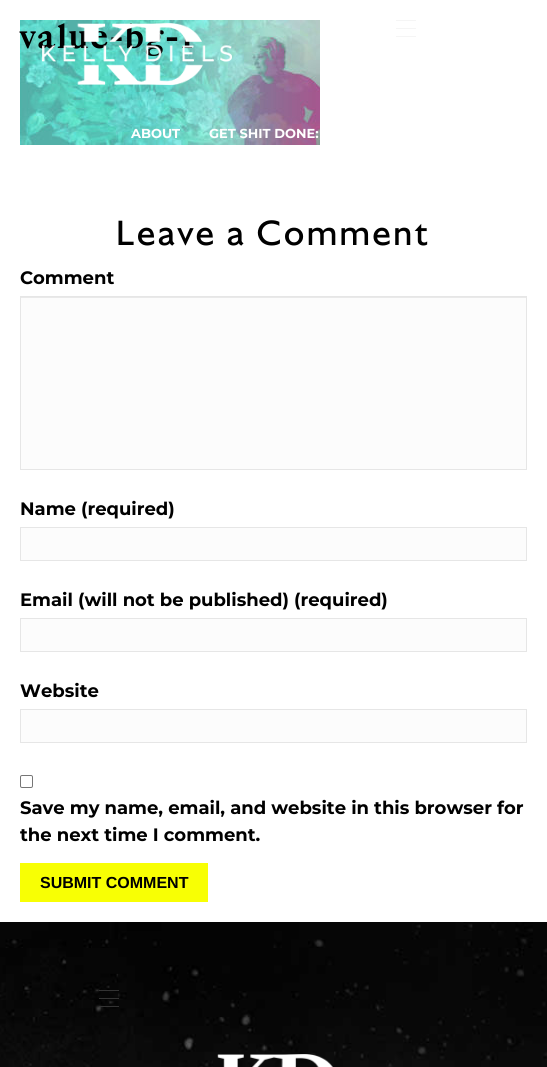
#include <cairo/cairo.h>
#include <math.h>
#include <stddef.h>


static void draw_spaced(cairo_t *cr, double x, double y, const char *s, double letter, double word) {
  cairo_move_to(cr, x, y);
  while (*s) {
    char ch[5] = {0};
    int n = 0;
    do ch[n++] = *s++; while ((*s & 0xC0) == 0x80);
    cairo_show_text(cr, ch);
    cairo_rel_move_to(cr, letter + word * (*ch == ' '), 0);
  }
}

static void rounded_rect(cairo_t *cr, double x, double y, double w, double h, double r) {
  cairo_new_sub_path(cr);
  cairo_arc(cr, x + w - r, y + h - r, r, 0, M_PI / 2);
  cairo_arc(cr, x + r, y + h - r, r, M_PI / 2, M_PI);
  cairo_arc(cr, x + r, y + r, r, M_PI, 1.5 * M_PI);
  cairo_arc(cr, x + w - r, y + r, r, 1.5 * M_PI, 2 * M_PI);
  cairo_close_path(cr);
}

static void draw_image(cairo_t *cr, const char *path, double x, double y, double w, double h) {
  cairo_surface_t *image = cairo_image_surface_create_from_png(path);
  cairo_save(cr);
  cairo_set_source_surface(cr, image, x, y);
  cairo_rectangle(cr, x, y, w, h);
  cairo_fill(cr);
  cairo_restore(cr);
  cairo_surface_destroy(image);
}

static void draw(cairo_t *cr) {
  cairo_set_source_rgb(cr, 1, 1, 1);
  cairo_paint(cr);
  draw_image(cr, "images/1.png", 20, 20, 300, 125);
  cairo_set_source_rgb(cr, 252 / 255.0, 252 / 255.0, 252 / 255.0);
  cairo_rectangle(cr, 21, 298, 505, 171);
  cairo_fill(cr);
  cairo_set_source_rgb(cr, 233 / 255.0, 233 / 255.0, 233 / 255.0);
  cairo_rectangle(cr, 21, 297, 505, 1);
  cairo_fill(cr);
  cairo_rectangle(cr, 20.5, 296.5, 506, 173);
  cairo_set_source_rgb(cr, 230 / 255.0, 230 / 255.0, 230 / 255.0);
  cairo_set_line_width(cr, 1);
  cairo_stroke(cr);
  cairo_set_source_rgb(cr, 252 / 255.0, 252 / 255.0, 252 / 255.0);
  cairo_rectangle(cr, 20.5, 527.5, 506, 33);
  cairo_fill_preserve(cr);
  cairo_set_source_rgb(cr, 230 / 255.0, 230 / 255.0, 230 / 255.0);
  cairo_stroke(cr);
  cairo_set_source_rgb(cr, 252 / 255.0, 252 / 255.0, 252 / 255.0);
  cairo_rectangle(cr, 20.5, 618.5, 506, 33);
  cairo_fill_preserve(cr);
  cairo_set_source_rgb(cr, 230 / 255.0, 230 / 255.0, 230 / 255.0);
  cairo_stroke(cr);
  cairo_set_source_rgb(cr, 252 / 255.0, 252 / 255.0, 252 / 255.0);
  cairo_rectangle(cr, 20.5, 709.5, 506, 33);
  cairo_fill_preserve(cr);
  cairo_set_source_rgb(cr, 230 / 255.0, 230 / 255.0, 230 / 255.0);
  cairo_stroke(cr);
  rounded_rect(cr, 20.5, 775.5, 12, 12, 1.5);
  cairo_set_source_rgb(cr, 118 / 255.0, 118 / 255.0, 118 / 255.0);
  cairo_stroke(cr);
  cairo_set_source_rgb(cr, 248 / 255.0, 1, 4 / 255.0);
  cairo_rectangle(cr, 20, 863, 188, 39);
  cairo_fill(cr);
  cairo_set_source_rgb(cr, 245 / 255.0, 245 / 255.0, 245 / 255.0);
  cairo_rectangle(cr, 396, 20, 20, 1);
  cairo_fill(cr);
  cairo_rectangle(cr, 396, 28, 20, 1);
  cairo_fill(cr);
  cairo_rectangle(cr, 396, 36, 20, 1);
  cairo_fill(cr);
  draw_image(cr, "images/3.png", 0, 922, 547, 145);
  cairo_set_source_rgb(cr, 51 / 255.0, 51 / 255.0, 51 / 255.0);
  cairo_rectangle(cr, 99, 990, 20, 1);
  cairo_fill(cr);
  cairo_rectangle(cr, 99, 998, 20, 1);
  cairo_fill(cr);
  cairo_rectangle(cr, 99, 1006, 20, 1);
  cairo_fill(cr);
  draw_image(cr, "images/4.png", 217, 1054, 116, 13);
  cairo_select_font_face(cr, "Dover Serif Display", CAIRO_FONT_SLANT_NORMAL, CAIRO_FONT_WEIGHT_BOLD);
  cairo_set_font_size(cr, 33.5);
  cairo_set_source_rgb(cr, 0, 0, 0);
  draw_spaced(cr, 20, 48, "value-bg-1", 3, 0);
  cairo_select_font_face(cr, "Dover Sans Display", CAIRO_FONT_SLANT_NORMAL, CAIRO_FONT_WEIGHT_NORMAL);
  cairo_set_font_size(cr, 36);
  draw_spaced(cr, 116, 245, "Leave a Comment", 3, 0);
  cairo_select_font_face(cr, "Montserrat", CAIRO_FONT_SLANT_NORMAL, CAIRO_FONT_WEIGHT_BOLD);
  cairo_set_font_size(cr, 18);
  cairo_move_to(cr, 20, 284);
  cairo_show_text(cr, "Comment");
  cairo_move_to(cr, 20, 515);
  cairo_show_text(cr, "Name (required)");
  cairo_move_to(cr, 20, 606);
  cairo_show_text(cr, "Email (will not be published) (required)");
  cairo_move_to(cr, 20, 697);
  cairo_show_text(cr, "Website");
  cairo_move_to(cr, 20, 814);
  cairo_show_text(cr, "Save my name, email, and website in this browser for");
  cairo_move_to(cr, 20, 841);
  cairo_show_text(cr, "the next time I comment.");
  cairo_select_font_face(cr, "Liberation Sans", CAIRO_FONT_SLANT_NORMAL, CAIRO_FONT_WEIGHT_BOLD);
  cairo_set_font_size(cr, 16);
  cairo_move_to(cr, 40, 888);
  cairo_show_text(cr, "SUBMIT COMMENT");
  draw_image(cr, "images/2.png", 42, 23, 190, 62);
  cairo_select_font_face(cr, "Montserrat", CAIRO_FONT_SLANT_NORMAL, CAIRO_FONT_WEIGHT_BOLD);
  cairo_set_font_size(cr, 13);
  cairo_set_source_rgb(cr, 1, 1, 1);
  cairo_move_to(cr, 131, 138);
  cairo_show_text(cr, "ABOUT");
  cairo_move_to(cr, 209, 138);
  cairo_show_text(cr, "GET SHIT DONE:");
}

int main(void) {
  cairo_surface_t *surface = cairo_image_surface_create(CAIRO_FORMAT_RGB24, 547, 1067);
  cairo_t *cr = cairo_create(surface);
  cairo_font_options_t *options = cairo_font_options_create();
  cairo_font_options_set_hint_metrics(options, CAIRO_HINT_METRICS_OFF);
  cairo_font_options_set_hint_style(options, CAIRO_HINT_STYLE_NONE);
  cairo_set_font_options(cr, options);
  cairo_set_miter_limit(cr, 4);
  draw(cr);
  cairo_surface_write_to_png(surface, "out.png");
  cairo_font_options_destroy(options);
  cairo_destroy(cr);
  cairo_surface_destroy(surface);
  return 0;
}
